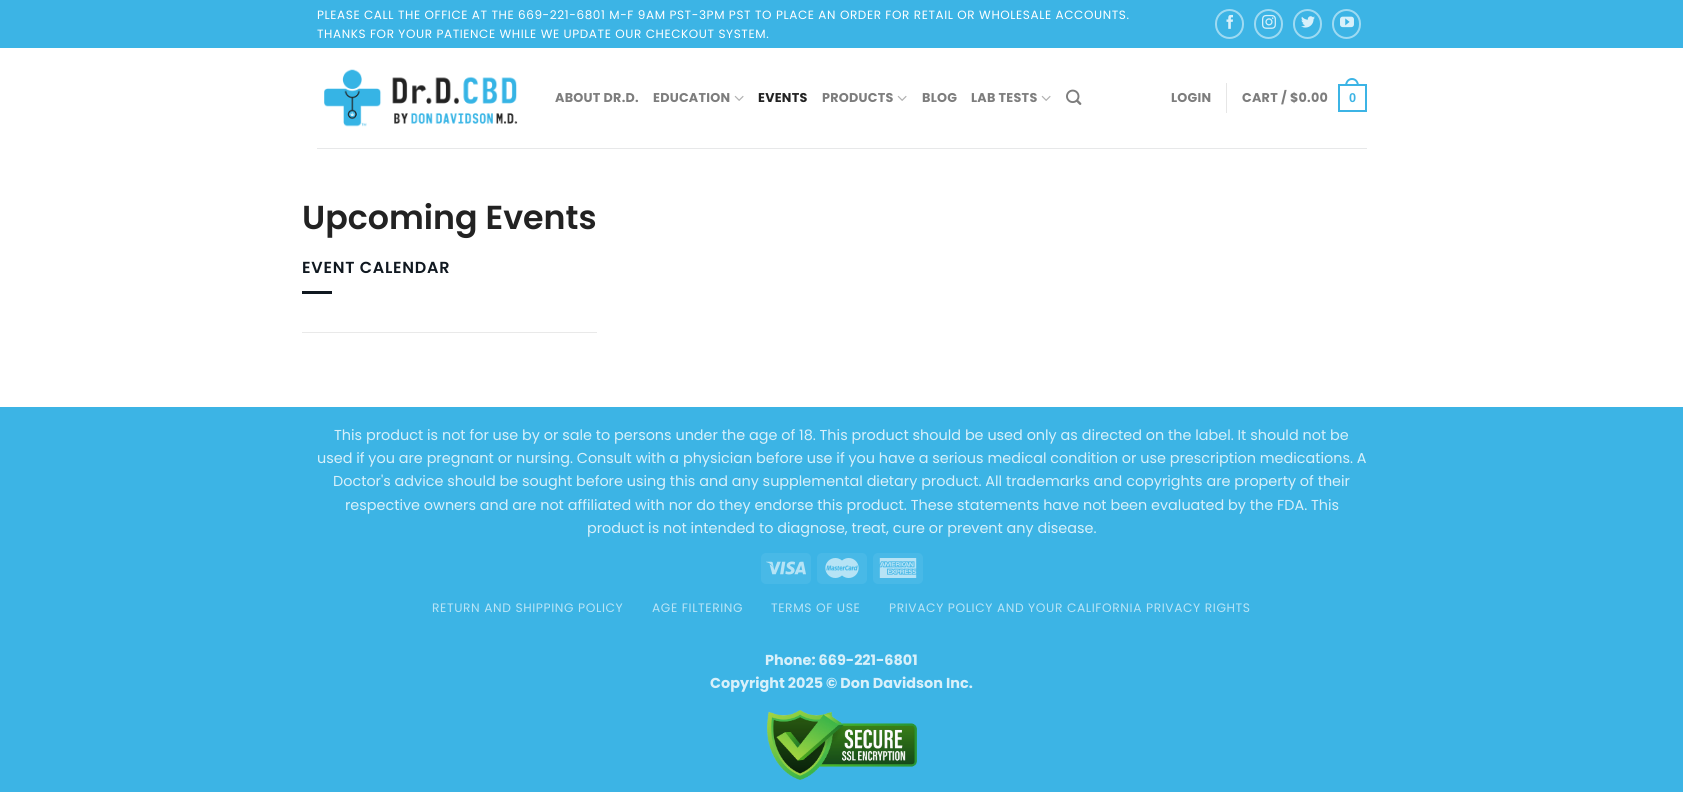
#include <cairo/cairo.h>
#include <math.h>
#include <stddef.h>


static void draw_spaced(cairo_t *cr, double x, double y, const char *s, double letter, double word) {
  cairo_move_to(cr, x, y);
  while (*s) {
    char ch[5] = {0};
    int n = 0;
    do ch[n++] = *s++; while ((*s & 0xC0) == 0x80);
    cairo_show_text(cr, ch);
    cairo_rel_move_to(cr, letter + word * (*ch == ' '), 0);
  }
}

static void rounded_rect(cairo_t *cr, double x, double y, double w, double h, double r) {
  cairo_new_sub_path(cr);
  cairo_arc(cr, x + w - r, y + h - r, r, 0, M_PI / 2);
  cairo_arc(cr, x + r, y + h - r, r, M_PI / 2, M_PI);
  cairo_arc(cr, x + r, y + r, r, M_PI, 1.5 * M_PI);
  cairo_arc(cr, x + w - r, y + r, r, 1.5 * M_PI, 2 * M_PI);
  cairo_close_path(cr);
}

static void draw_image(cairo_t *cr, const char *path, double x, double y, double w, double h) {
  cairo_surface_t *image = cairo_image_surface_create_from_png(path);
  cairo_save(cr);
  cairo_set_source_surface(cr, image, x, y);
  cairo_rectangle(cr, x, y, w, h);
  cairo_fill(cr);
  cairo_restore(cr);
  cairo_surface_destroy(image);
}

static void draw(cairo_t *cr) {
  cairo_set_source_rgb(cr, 1, 1, 1);
  cairo_paint(cr);
  cairo_set_source_rgb(cr, 60 / 255.0, 180 / 255.0, 229 / 255.0);
  cairo_rectangle(cr, 0, 0, 1683, 48);
  cairo_fill(cr);
  rounded_rect(cr, 1216, 10, 27, 28, 13.5);
  cairo_set_source_rgb(cr, 158 / 255.0, 218 / 255.0, 242 / 255.0);
  cairo_stroke(cr);
  draw_image(cr, "images/1.png", 1226, 14, 7, 15);
  rounded_rect(cr, 1255, 10, 27, 28, 13.5);
  cairo_stroke(cr);
  draw_image(cr, "images/2.png", 1262, 14, 14, 15);
  rounded_rect(cr, 1294, 10, 27, 28, 13.5);
  cairo_stroke(cr);
  draw_image(cr, "images/3.png", 1301, 16, 14, 12);
  rounded_rect(cr, 1333, 10, 27, 28, 13.5);
  cairo_stroke(cr);
  draw_image(cr, "images/4.png", 1340, 16, 14, 12);
  draw_image(cr, "images/5.png", 324, 69, 194, 58);
  draw_image(cr, "images/6.png", 734, 95, 10, 6);
  draw_image(cr, "images/6.png", 897, 95, 10, 6);
  draw_image(cr, "images/6.png", 1041, 95, 10, 6);
  draw_image(cr, "images/7.png", 1066, 89, 16, 16);
  cairo_set_source_rgb(cr, 230 / 255.0, 230 / 255.0, 230 / 255.0);
  cairo_rectangle(cr, 1226, 83, 1, 30);
  cairo_fill(cr);
  cairo_rectangle(cr, 1339, 85, 27, 26);
  cairo_set_source_rgb(cr, 60 / 255.0, 180 / 255.0, 229 / 255.0);
  cairo_stroke(cr);
  cairo_set_fill_rule(cr, CAIRO_FILL_RULE_EVEN_ODD);
  cairo_new_path(cr);
  cairo_move_to(cr, 1352, 78);
  cairo_curve_to(cr, 1356.5, 78, 1359, 82, 1359, 86);
  cairo_line_to(cr, 1345, 86);
  cairo_curve_to(cr, 1345, 82, 1347.5, 78, 1352, 78);
  cairo_close_path(cr);
  cairo_move_to(cr, 1352, 80);
  cairo_curve_to(cr, 1355.5, 80, 1357, 83, 1357, 86);
  cairo_line_to(cr, 1347, 86);
  cairo_curve_to(cr, 1347, 83, 1348.5, 80, 1352, 80);
  cairo_close_path(cr);
  cairo_fill(cr);
  cairo_set_source_rgb(cr, 231 / 255.0, 232 / 255.0, 233 / 255.0);
  cairo_rectangle(cr, 317, 148, 1050, 1);
  cairo_fill(cr);
  cairo_set_source_rgb(cr, 233 / 255.0, 233 / 255.0, 233 / 255.0);
  cairo_rectangle(cr, 302, 332, 295, 1);
  cairo_fill(cr);
  cairo_set_source_rgb(cr, 16 / 255.0, 24 / 255.0, 32 / 255.0);
  cairo_rectangle(cr, 302, 291, 30, 3);
  cairo_fill(cr);
  cairo_set_source_rgb(cr, 60 / 255.0, 180 / 255.0, 229 / 255.0);
  cairo_rectangle(cr, 0, 407, 1683, 385);
  cairo_fill(cr);
  cairo_set_source_rgb(cr, 72 / 255.0, 185 / 255.0, 231 / 255.0);
  rounded_rect(cr, 761, 553, 50, 31, 5);
  cairo_fill(cr);
  draw_image(cr, "images/8.png", 766, 561, 40, 14);
  rounded_rect(cr, 817, 553, 50, 31, 5);
  cairo_fill(cr);
  draw_image(cr, "images/9.png", 825, 558, 34, 20);
  rounded_rect(cr, 873, 553, 50, 31, 5);
  cairo_fill(cr);
  draw_image(cr, "images/10.png", 879, 558, 38, 20);
  draw_image(cr, "images/11.png", 767, 710, 150, 70);
  cairo_select_font_face(cr, "Poppins", CAIRO_FONT_SLANT_NORMAL, CAIRO_FONT_WEIGHT_NORMAL);
  cairo_set_font_size(cr, 12);
  cairo_set_source_rgb(cr, 1, 1, 1);
  draw_spaced(cr, 317, 19, "PLEASE CALL THE OFFICE AT THE 669-221-6801 M-F 9AM PST-3PM PST TO PLACE AN ORDER FOR RETAIL OR WHOLESALE ACCOUNTS.", 0.6, 0);
  draw_spaced(cr, 317, 38, "THANKS FOR YOUR PATIENCE WHILE WE UPDATE OUR CHECKOUT SYSTEM.", 0.6, 0);
  cairo_select_font_face(cr, "Poppins", CAIRO_FONT_SLANT_NORMAL, CAIRO_FONT_WEIGHT_BOLD);
  cairo_set_font_size(cr, 12.75);
  cairo_set_source_rgb(cr, 125 / 255.0, 125 / 255.0, 125 / 255.0);
  draw_spaced(cr, 555, 102, "ABOUT DR.D.", 0.25, 0);
  draw_spaced(cr, 653, 102, "EDUCATION", 0.25, 0);
  cairo_set_source_rgb(cr, 34 / 255.0, 34 / 255.0, 34 / 255.0);
  draw_spaced(cr, 758, 102, "EVENTS", 0.25, 0);
  cairo_set_source_rgb(cr, 125 / 255.0, 125 / 255.0, 125 / 255.0);
  draw_spaced(cr, 822, 102, "PRODUCTS", 0.25, 0);
  draw_spaced(cr, 922, 102, "BLOG", 0.25, 0);
  draw_spaced(cr, 971, 102, "LAB TESTS", 0.25, 0);
  draw_spaced(cr, 1171, 102, "LOGIN", 0.25, 0);
  draw_spaced(cr, 1242, 102, "CART / $0.00", 0.25, 0);
  cairo_select_font_face(cr, "Liberation Sans", CAIRO_FONT_SLANT_NORMAL, CAIRO_FONT_WEIGHT_BOLD);
  cairo_set_source_rgb(cr, 60 / 255.0, 180 / 255.0, 229 / 255.0);
  draw_spaced(cr, 1349, 102, "0", 0.25, 0);
  cairo_select_font_face(cr, "Poppins SemiBold", CAIRO_FONT_SLANT_NORMAL, CAIRO_FONT_WEIGHT_NORMAL);
  cairo_set_font_size(cr, 33.25);
  cairo_set_source_rgb(cr, 34 / 255.0, 34 / 255.0, 34 / 255.0);
  cairo_move_to(cr, 302, 229);
  cairo_show_text(cr, "Upcoming Events");
  cairo_set_font_size(cr, 16);
  cairo_set_source_rgb(cr, 16 / 255.0, 24 / 255.0, 32 / 255.0);
  draw_spaced(cr, 302, 273, "EVENT CALENDAR", 0.75, 0);
  cairo_select_font_face(cr, "Poppins", CAIRO_FONT_SLANT_NORMAL, CAIRO_FONT_WEIGHT_NORMAL);
  cairo_set_font_size(cr, 14.4);
  cairo_set_source_rgb(cr, 216 / 255.0, 240 / 255.0, 250 / 255.0);
  cairo_move_to(cr, 334, 440);
  cairo_show_text(cr, "This product is not for use by or sale to persons under the age of 18. This product should be used only as directed on the label. It should not be");
  cairo_move_to(cr, 317, 463);
  cairo_show_text(cr, "used if you are pregnant or nursing. Consult with a physician before use if you have a serious medical condition or use prescription medications. A");
  cairo_move_to(cr, 333, 486);
  cairo_show_text(cr, "Doctor's advice should be sought before using this and any supplemental dietary product. All trademarks and copyrights are property of their");
  cairo_move_to(cr, 345, 510);
  cairo_show_text(cr, "respective owners and are not affiliated with nor do they endorse this product. These statements have not been evaluated by the FDA. This");
  cairo_move_to(cr, 587, 533);
  cairo_show_text(cr, "product is not intended to diagnose, treat, cure or prevent any disease.");
  cairo_set_font_size(cr, 12.25);
  cairo_set_source_rgb(cr, 185 / 255.0, 228 / 255.0, 246 / 255.0);
  draw_spaced(cr, 432, 612, "RETURN AND SHIPPING POLICY", 0.6, 0);
  draw_spaced(cr, 652, 612, "AGE FILTERING", 0.6, 0);
  draw_spaced(cr, 771, 612, "TERMS OF USE", 0.6, 0);
  draw_spaced(cr, 889, 612, "PRIVACY POLICY AND YOUR CALIFORNIA PRIVACY RIGHTS", 0.6, 0);
  cairo_select_font_face(cr, "Poppins", CAIRO_FONT_SLANT_NORMAL, CAIRO_FONT_WEIGHT_BOLD);
  cairo_set_font_size(cr, 14.4);
  cairo_set_source_rgb(cr, 216 / 255.0, 240 / 255.0, 250 / 255.0);
  cairo_move_to(cr, 765, 665);
  cairo_show_text(cr, "Phone: 669-221-6801");
  cairo_move_to(cr, 710, 688);
  cairo_show_text(cr, "Copyright 2025 © Don Davidson Inc.");
}

int main(void) {
  cairo_surface_t *surface = cairo_image_surface_create(CAIRO_FORMAT_RGB24, 1683, 792);
  cairo_t *cr = cairo_create(surface);
  cairo_font_options_t *options = cairo_font_options_create();
  cairo_font_options_set_hint_metrics(options, CAIRO_HINT_METRICS_OFF);
  cairo_font_options_set_hint_style(options, CAIRO_HINT_STYLE_NONE);
  cairo_set_font_options(cr, options);
  cairo_set_miter_limit(cr, 4);
  draw(cr);
  cairo_surface_write_to_png(surface, "out.png");
  cairo_font_options_destroy(options);
  cairo_destroy(cr);
  cairo_surface_destroy(surface);
  return 0;
}
